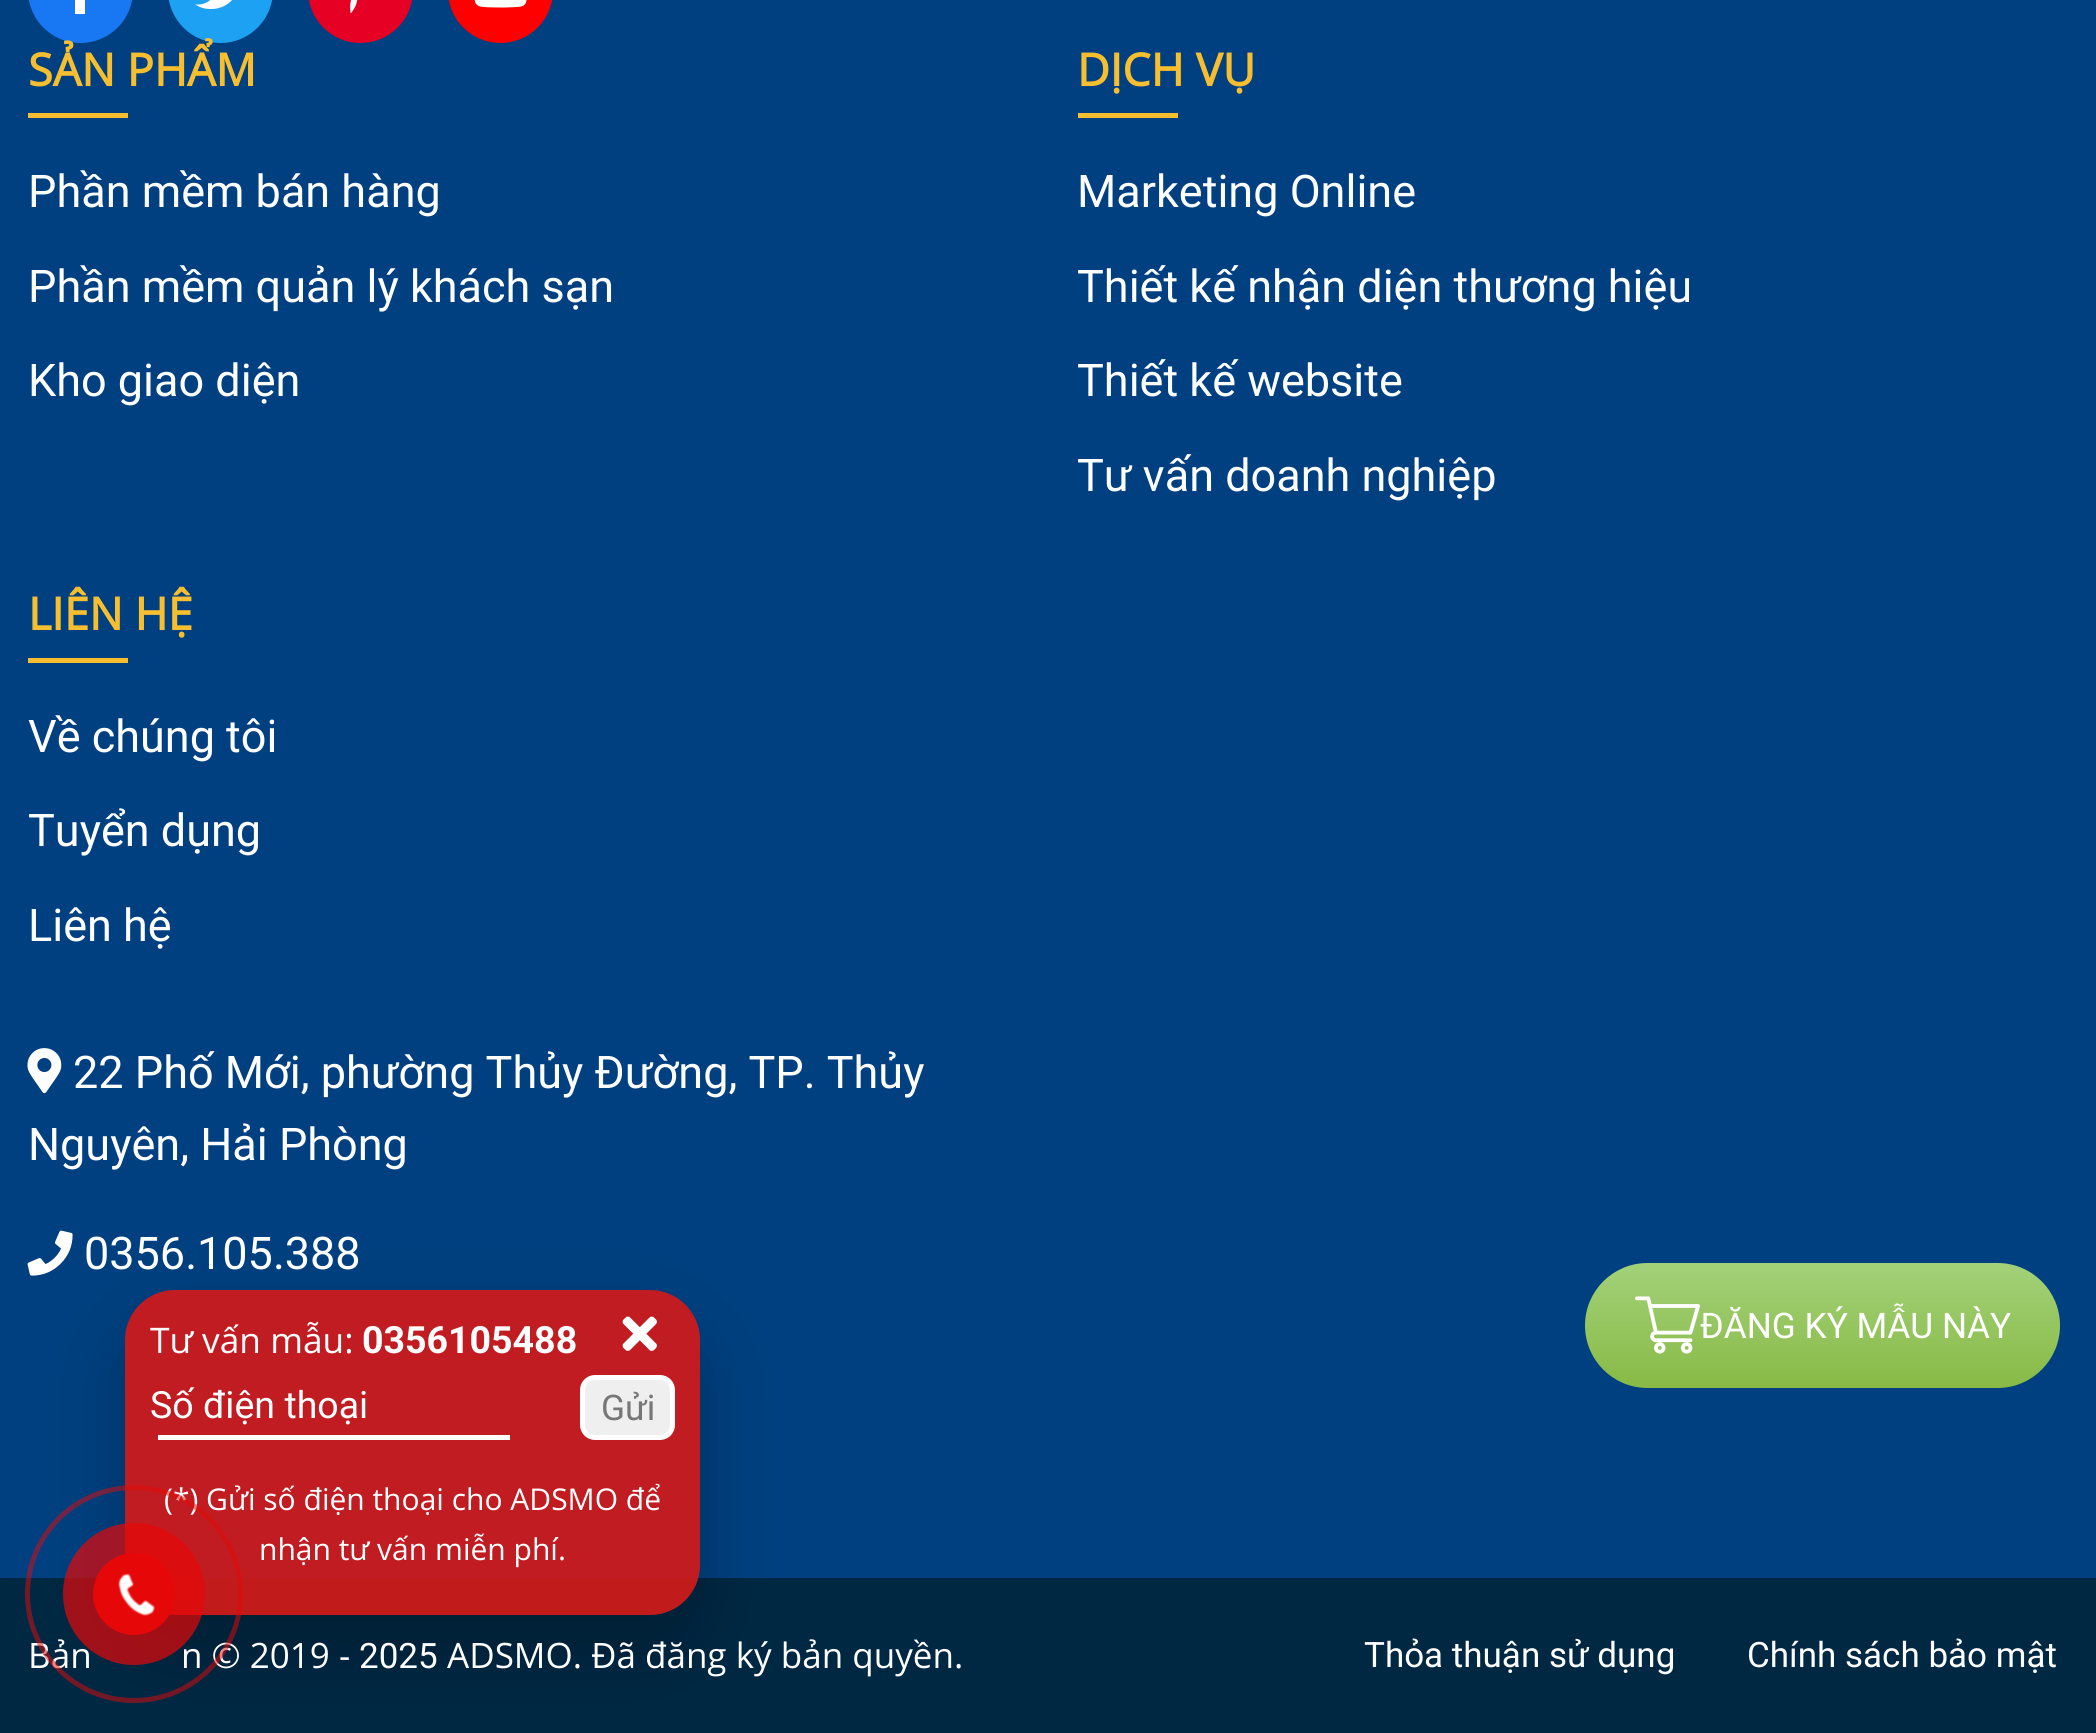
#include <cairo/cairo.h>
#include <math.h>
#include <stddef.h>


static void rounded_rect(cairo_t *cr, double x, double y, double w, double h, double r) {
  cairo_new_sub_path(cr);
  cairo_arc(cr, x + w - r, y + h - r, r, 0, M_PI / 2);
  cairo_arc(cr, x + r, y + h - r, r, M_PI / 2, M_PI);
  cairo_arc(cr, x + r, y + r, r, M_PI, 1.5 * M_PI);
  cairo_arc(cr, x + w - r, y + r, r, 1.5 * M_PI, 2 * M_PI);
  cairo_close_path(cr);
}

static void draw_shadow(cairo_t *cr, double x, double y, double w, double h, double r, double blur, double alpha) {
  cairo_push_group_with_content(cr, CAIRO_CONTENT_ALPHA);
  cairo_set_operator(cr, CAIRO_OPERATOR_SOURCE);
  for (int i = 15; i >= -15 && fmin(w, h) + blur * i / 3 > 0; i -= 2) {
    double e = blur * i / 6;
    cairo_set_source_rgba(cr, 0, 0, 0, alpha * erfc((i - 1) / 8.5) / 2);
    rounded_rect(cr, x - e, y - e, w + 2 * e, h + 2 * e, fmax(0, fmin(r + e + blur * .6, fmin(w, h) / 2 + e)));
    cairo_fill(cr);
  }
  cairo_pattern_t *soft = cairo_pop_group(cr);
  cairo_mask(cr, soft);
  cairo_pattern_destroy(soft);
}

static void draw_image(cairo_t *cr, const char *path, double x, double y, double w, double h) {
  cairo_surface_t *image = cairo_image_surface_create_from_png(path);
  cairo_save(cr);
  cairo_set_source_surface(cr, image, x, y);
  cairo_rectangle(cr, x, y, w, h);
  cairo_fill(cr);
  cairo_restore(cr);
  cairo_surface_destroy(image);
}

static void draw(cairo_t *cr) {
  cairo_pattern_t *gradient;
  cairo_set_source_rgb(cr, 0, 64 / 255.0, 128 / 255.0);
  cairo_paint(cr);
  cairo_set_source_rgb(cr, 24 / 255.0, 119 / 255.0, 243 / 255.0);
  rounded_rect(cr, 28, -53, 105, 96, 52.5);
  cairo_fill(cr);
  cairo_set_source_rgb(cr, 1, 1, 1);
  cairo_rectangle(cr, 75, 0, 10, 14);
  cairo_fill(cr);
  cairo_set_source_rgb(cr, 29 / 255.0, 161 / 255.0, 242 / 255.0);
  rounded_rect(cr, 168, -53, 105, 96, 52.5);
  cairo_fill(cr);
  draw_image(cr, "images/1.png", 195, 0, 37, 10);
  cairo_set_source_rgb(cr, 230 / 255.0, 0, 35 / 255.0);
  rounded_rect(cr, 308, -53, 105, 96, 52.5);
  cairo_fill(cr);
  draw_image(cr, "images/2.png", 350, 0, 8, 14);
  cairo_set_source_rgb(cr, 1, 0, 0);
  rounded_rect(cr, 448, -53, 105, 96, 52.5);
  cairo_fill(cr);
  draw_image(cr, "images/3.png", 474, 0, 53, 8);
  cairo_set_source_rgb(cr, 247 / 255.0, 190 / 255.0, 47 / 255.0);
  cairo_rectangle(cr, 28, 113, 100, 5);
  cairo_fill(cr);
  cairo_rectangle(cr, 1078, 113, 100, 5);
  cairo_fill(cr);
  cairo_rectangle(cr, 28, 658, 100, 5);
  cairo_fill(cr);
  draw_image(cr, "images/4.png", 27, 1048, 35, 46);
  draw_image(cr, "images/5.png", 27, 1230, 46, 46);
  cairo_set_source_rgb(cr, 0, 40 / 255.0, 67 / 255.0);
  cairo_rectangle(cr, 0, 1578, 2096, 155);
  cairo_fill(cr);
  cairo_save(cr);
  cairo_set_fill_rule(cr, CAIRO_FILL_RULE_EVEN_ODD);
  cairo_new_path(cr);
  cairo_move_to(cr, 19, 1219);
  cairo_line_to(cr, 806, 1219);
  cairo_line_to(cr, 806, 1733);
  cairo_line_to(cr, 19, 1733);
  cairo_close_path(cr);
  cairo_move_to(cr, 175, 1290);
  cairo_line_to(cr, 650, 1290);
  cairo_curve_to(cr, 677.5, 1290, 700, 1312.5, 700, 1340);
  cairo_line_to(cr, 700, 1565);
  cairo_curve_to(cr, 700, 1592.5, 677.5, 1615, 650, 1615);
  cairo_line_to(cr, 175, 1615);
  cairo_curve_to(cr, 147.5, 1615, 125, 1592.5, 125, 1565);
  cairo_line_to(cr, 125, 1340);
  cairo_curve_to(cr, 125, 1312.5, 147.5, 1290, 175, 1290);
  cairo_close_path(cr);
  cairo_clip(cr);
  cairo_set_source_rgb(cr, 0, 0, 0);
  draw_shadow(cr, 125, 1325, 575, 325, 50, 35, 0.25);
  cairo_restore(cr);
  cairo_set_source_rgba(cr, 207 / 255.0, 26 / 255.0, 26 / 255.0, 0.93);
  rounded_rect(cr, 125, 1290, 575, 325, 50);
  cairo_fill(cr);
  draw_image(cr, "images/6.png", 622, 1316, 35, 35);
  cairo_set_source_rgb(cr, 1, 1, 1);
  cairo_rectangle(cr, 158, 1435, 352, 5);
  cairo_fill(cr);
  cairo_set_source_rgb(cr, 239 / 255.0, 239 / 255.0, 239 / 255.0);
  rounded_rect(cr, 582.5, 1377.5, 90, 60, 12.5);
  cairo_fill_preserve(cr);
  cairo_set_source_rgb(cr, 1, 1, 1);
  cairo_set_line_width(cr, 5);
  cairo_stroke(cr);
  gradient = cairo_pattern_create_linear(1823, 1263, 1823, 1388);
  cairo_pattern_add_color_stop_rgba(gradient, 0, 163 / 255.0, 209 / 255.0, 121 / 255.0, 1);
  cairo_pattern_add_color_stop_rgba(gradient, 1, 136 / 255.0, 186 / 255.0, 70 / 255.0, 1);
  cairo_set_source(cr, gradient);
  cairo_pattern_destroy(gradient);
  rounded_rect(cr, 1585, 1263, 475, 125, 62.5);
  cairo_fill(cr);
  draw_image(cr, "images/8.png", 1635, 1296, 65, 58);
  cairo_select_font_face(cr, "Open Sans", CAIRO_FONT_SLANT_NORMAL, CAIRO_FONT_WEIGHT_BOLD);
  cairo_set_font_size(cr, 45);
  cairo_set_source_rgb(cr, 247 / 255.0, 190 / 255.0, 47 / 255.0);
  cairo_move_to(cr, 28, 86);
  cairo_show_text(cr, "SẢN PHẨM");
  cairo_select_font_face(cr, "Roboto", CAIRO_FONT_SLANT_NORMAL, CAIRO_FONT_WEIGHT_NORMAL);
  cairo_set_source_rgb(cr, 1, 1, 1);
  cairo_move_to(cr, 28, 207);
  cairo_show_text(cr, "Phần mềm bán hàng");
  cairo_move_to(cr, 28, 302);
  cairo_show_text(cr, "Phần mềm quản lý khách sạn");
  cairo_move_to(cr, 28, 396);
  cairo_show_text(cr, "Kho giao diện");
  cairo_select_font_face(cr, "Open Sans", CAIRO_FONT_SLANT_NORMAL, CAIRO_FONT_WEIGHT_BOLD);
  cairo_set_source_rgb(cr, 247 / 255.0, 190 / 255.0, 47 / 255.0);
  cairo_move_to(cr, 1077, 86);
  cairo_show_text(cr, "DỊCH VỤ");
  cairo_select_font_face(cr, "Roboto", CAIRO_FONT_SLANT_NORMAL, CAIRO_FONT_WEIGHT_NORMAL);
  cairo_set_source_rgb(cr, 1, 1, 1);
  cairo_move_to(cr, 1077, 207);
  cairo_show_text(cr, "Marketing Online");
  cairo_move_to(cr, 1077, 302);
  cairo_show_text(cr, "Thiết kế nhận diện thương hiệu");
  cairo_move_to(cr, 1077, 396);
  cairo_show_text(cr, "Thiết kế website");
  cairo_move_to(cr, 1077, 491);
  cairo_show_text(cr, "Tư vấn doanh nghiệp");
  cairo_select_font_face(cr, "Open Sans", CAIRO_FONT_SLANT_NORMAL, CAIRO_FONT_WEIGHT_BOLD);
  cairo_set_source_rgb(cr, 247 / 255.0, 190 / 255.0, 47 / 255.0);
  cairo_move_to(cr, 28, 630);
  cairo_show_text(cr, "LIÊN HỆ");
  cairo_select_font_face(cr, "Roboto", CAIRO_FONT_SLANT_NORMAL, CAIRO_FONT_WEIGHT_NORMAL);
  cairo_set_source_rgb(cr, 1, 1, 1);
  cairo_move_to(cr, 28, 752);
  cairo_show_text(cr, "Về chúng tôi");
  cairo_move_to(cr, 28, 846);
  cairo_show_text(cr, "Tuyển dụng");
  cairo_move_to(cr, 28, 941);
  cairo_show_text(cr, "Liên hệ");
  cairo_move_to(cr, 73, 1088);
  cairo_show_text(cr, "22 Phố Mới, phường Thủy Đường, TP. Thủy");
  cairo_move_to(cr, 28, 1160);
  cairo_show_text(cr, "Nguyên, Hải Phòng");
  cairo_move_to(cr, 84, 1269);
  cairo_show_text(cr, "0356.105.388");
  cairo_select_font_face(cr, "Open Sans", CAIRO_FONT_SLANT_NORMAL, CAIRO_FONT_WEIGHT_NORMAL);
  cairo_set_font_size(cr, 35.25);
  cairo_move_to(cr, 150, 1353);
  cairo_show_text(cr, "Tư vấn mẫu:");
  cairo_select_font_face(cr, "Roboto", CAIRO_FONT_SLANT_NORMAL, CAIRO_FONT_WEIGHT_BOLD);
  cairo_set_font_size(cr, 37.5);
  cairo_move_to(cr, 362, 1353);
  cairo_show_text(cr, "0356105488");
  cairo_select_font_face(cr, "Roboto", CAIRO_FONT_SLANT_NORMAL, CAIRO_FONT_WEIGHT_NORMAL);
  cairo_move_to(cr, 150, 1418);
  cairo_show_text(cr, "Số điện thoại");
  cairo_set_font_size(cr, 35.25);
  cairo_set_source_rgb(cr, 119 / 255.0, 119 / 255.0, 119 / 255.0);
  cairo_move_to(cr, 601, 1420);
  cairo_show_text(cr, "Gửi");
  cairo_select_font_face(cr, "Open Sans", CAIRO_FONT_SLANT_NORMAL, CAIRO_FONT_WEIGHT_NORMAL);
  cairo_set_font_size(cr, 30);
  cairo_set_source_rgb(cr, 1, 1, 1);
  cairo_move_to(cr, 164, 1510);
  cairo_show_text(cr, "(*) Gửi số điện thoại cho ADSMO để");
  cairo_move_to(cr, 259, 1560);
  cairo_show_text(cr, "nhận tư vấn miễn phí.");
  cairo_select_font_face(cr, "Roboto", CAIRO_FONT_SLANT_NORMAL, CAIRO_FONT_WEIGHT_NORMAL);
  cairo_set_font_size(cr, 35.25);
  cairo_move_to(cr, 1700, 1338);
  cairo_show_text(cr, "ĐĂNG KÝ MẪU NÀY");
  cairo_select_font_face(cr, "Open Sans", CAIRO_FONT_SLANT_NORMAL, CAIRO_FONT_WEIGHT_NORMAL);
  cairo_set_font_size(cr, 35);
  cairo_move_to(cr, 28, 1668);
  cairo_show_text(cr, "Bản");
  cairo_move_to(cr, 181, 1668);
  cairo_show_text(cr, "n © 2019 -");
  cairo_new_path(cr);
  cairo_arc(cr, 134, 1594, 106.5, 0, 2 * M_PI);
  cairo_set_source_rgba(cr, 230 / 255.0, 8 / 255.0, 8 / 255.0, 0.5);
  cairo_stroke(cr);
  cairo_set_source_rgba(cr, 230 / 255.0, 8 / 255.0, 8 / 255.0, 0.7);
  cairo_arc(cr, 134, 1594, 71, 0, 2 * M_PI);
  cairo_fill(cr);
  cairo_set_source_rgb(cr, 230 / 255.0, 8 / 255.0, 8 / 255.0);
  cairo_arc(cr, 134, 1594, 41, 0, 2 * M_PI);
  cairo_fill(cr);
  draw_image(cr, "images/7.png", 118, 1573, 37, 43);
  cairo_select_font_face(cr, "Roboto", CAIRO_FONT_SLANT_NORMAL, CAIRO_FONT_WEIGHT_NORMAL);
  cairo_set_source_rgb(cr, 1, 1, 1);
  cairo_move_to(cr, 359, 1668);
  cairo_show_text(cr, "2025");
  cairo_select_font_face(cr, "Open Sans", CAIRO_FONT_SLANT_NORMAL, CAIRO_FONT_WEIGHT_NORMAL);
  cairo_move_to(cr, 447, 1668);
  cairo_show_text(cr, "ADSMO. Đã đăng ký bản quyền.");
  cairo_select_font_face(cr, "Roboto", CAIRO_FONT_SLANT_NORMAL, CAIRO_FONT_WEIGHT_NORMAL);
  cairo_move_to(cr, 1364, 1667);
  cairo_show_text(cr, "Thỏa thuận sử dụng");
  cairo_move_to(cr, 1747, 1667);
  cairo_show_text(cr, "Chính sách bảo mật");
}

int main(void) {
  cairo_surface_t *surface = cairo_image_surface_create(CAIRO_FORMAT_RGB24, 2096, 1733);
  cairo_t *cr = cairo_create(surface);
  cairo_font_options_t *options = cairo_font_options_create();
  cairo_font_options_set_hint_metrics(options, CAIRO_HINT_METRICS_OFF);
  cairo_font_options_set_hint_style(options, CAIRO_HINT_STYLE_NONE);
  cairo_set_font_options(cr, options);
  cairo_set_miter_limit(cr, 4);
  draw(cr);
  cairo_surface_write_to_png(surface, "out.png");
  cairo_font_options_destroy(options);
  cairo_destroy(cr);
  cairo_surface_destroy(surface);
  return 0;
}
